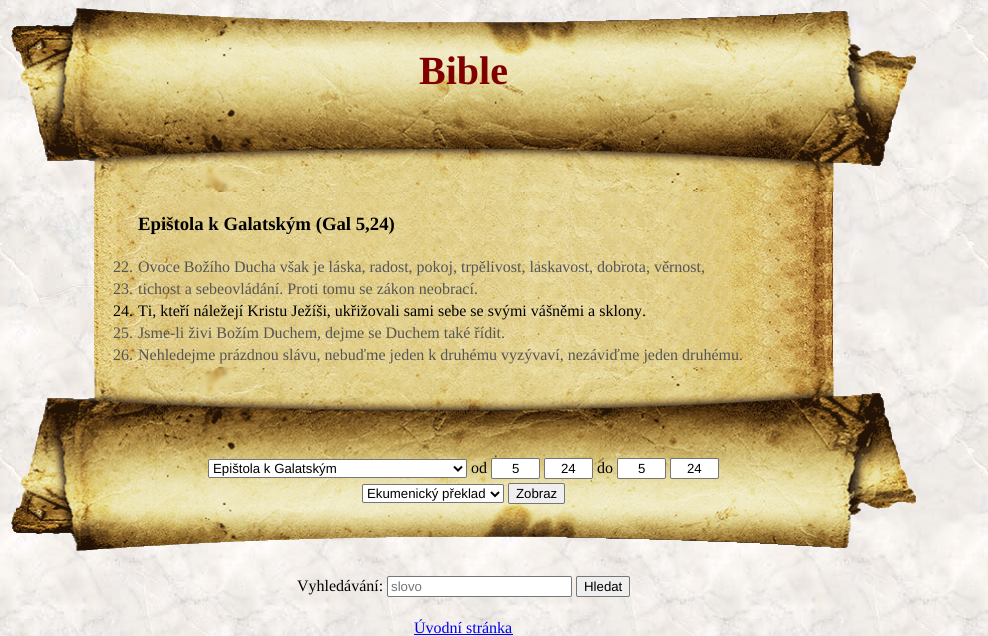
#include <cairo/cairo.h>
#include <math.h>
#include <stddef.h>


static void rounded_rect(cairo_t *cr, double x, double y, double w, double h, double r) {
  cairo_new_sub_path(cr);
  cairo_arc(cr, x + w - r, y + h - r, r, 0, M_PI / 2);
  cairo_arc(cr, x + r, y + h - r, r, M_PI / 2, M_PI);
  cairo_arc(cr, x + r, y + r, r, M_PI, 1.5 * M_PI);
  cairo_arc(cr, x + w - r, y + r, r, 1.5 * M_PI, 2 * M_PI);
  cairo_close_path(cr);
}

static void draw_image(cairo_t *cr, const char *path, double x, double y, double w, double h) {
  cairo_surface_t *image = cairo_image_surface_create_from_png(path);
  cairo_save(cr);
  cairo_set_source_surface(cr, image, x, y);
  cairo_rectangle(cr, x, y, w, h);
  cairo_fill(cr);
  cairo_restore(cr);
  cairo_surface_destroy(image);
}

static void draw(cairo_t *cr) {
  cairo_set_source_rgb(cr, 1, 1, 1);
  cairo_paint(cr);
  draw_image(cr, "images/1.png", 0, 0, 988, 636);
  draw_image(cr, "images/3.png", 94, 191, 739, 176);
  draw_image(cr, "images/2.png", 11, 8, 905, 184);
  draw_image(cr, "images/4.png", 11, 367, 905, 184);
  cairo_set_source_rgb(cr, 1, 1, 1);
  rounded_rect(cr, 208.5, 459.5, 258, 18, 1.5);
  cairo_fill_preserve(cr);
  cairo_set_source_rgb(cr, 118 / 255.0, 118 / 255.0, 118 / 255.0);
  cairo_set_line_width(cr, 1);
  cairo_stroke(cr);
  cairo_new_path(cr);
  cairo_move_to(cr, 454, 466.5);
  cairo_line_to(cr, 458, 470.5);
  cairo_line_to(cr, 462, 466.5);
  cairo_set_source_rgb(cr, 0, 0, 0);
  cairo_set_line_width(cr, 2);
  cairo_stroke(cr);
  cairo_set_source_rgb(cr, 1, 1, 1);
  rounded_rect(cr, 491.5, 458.5, 48, 20, 1.5);
  cairo_fill_preserve(cr);
  cairo_set_source_rgb(cr, 118 / 255.0, 118 / 255.0, 118 / 255.0);
  cairo_set_line_width(cr, 1);
  cairo_stroke(cr);
  cairo_set_source_rgb(cr, 1, 1, 1);
  rounded_rect(cr, 544.5, 458.5, 48, 20, 1.5);
  cairo_fill_preserve(cr);
  cairo_set_source_rgb(cr, 118 / 255.0, 118 / 255.0, 118 / 255.0);
  cairo_stroke(cr);
  cairo_set_source_rgb(cr, 1, 1, 1);
  rounded_rect(cr, 617.5, 458.5, 48, 20, 1.5);
  cairo_fill_preserve(cr);
  cairo_set_source_rgb(cr, 118 / 255.0, 118 / 255.0, 118 / 255.0);
  cairo_stroke(cr);
  cairo_set_source_rgb(cr, 1, 1, 1);
  rounded_rect(cr, 670.5, 458.5, 48, 20, 1.5);
  cairo_fill_preserve(cr);
  cairo_set_source_rgb(cr, 118 / 255.0, 118 / 255.0, 118 / 255.0);
  cairo_stroke(cr);
  cairo_set_source_rgb(cr, 1, 1, 1);
  rounded_rect(cr, 362.5, 484.5, 141, 18, 1.5);
  cairo_fill_preserve(cr);
  cairo_set_source_rgb(cr, 118 / 255.0, 118 / 255.0, 118 / 255.0);
  cairo_stroke(cr);
  cairo_new_path(cr);
  cairo_move_to(cr, 491, 492);
  cairo_line_to(cr, 495, 496);
  cairo_line_to(cr, 499, 492);
  cairo_set_source_rgb(cr, 0, 0, 0);
  cairo_set_line_width(cr, 2);
  cairo_stroke(cr);
  cairo_set_source_rgb(cr, 239 / 255.0, 239 / 255.0, 239 / 255.0);
  rounded_rect(cr, 508.5, 483.5, 56, 20, 1.5);
  cairo_fill_preserve(cr);
  cairo_set_source_rgb(cr, 118 / 255.0, 118 / 255.0, 118 / 255.0);
  cairo_set_line_width(cr, 1);
  cairo_stroke(cr);
  cairo_set_source_rgb(cr, 1, 1, 1);
  rounded_rect(cr, 387.5, 576.5, 184, 20, 1.5);
  cairo_fill_preserve(cr);
  cairo_set_source_rgb(cr, 118 / 255.0, 118 / 255.0, 118 / 255.0);
  cairo_stroke(cr);
  cairo_set_source_rgb(cr, 239 / 255.0, 239 / 255.0, 239 / 255.0);
  rounded_rect(cr, 576.5, 576.5, 53, 20, 1.5);
  cairo_fill_preserve(cr);
  cairo_set_source_rgb(cr, 118 / 255.0, 118 / 255.0, 118 / 255.0);
  cairo_stroke(cr);
  cairo_set_source_rgb(cr, 0, 0, 238 / 255.0);
  cairo_rectangle(cr, 414, 634, 99, 1);
  cairo_fill(cr);
  cairo_select_font_face(cr, "Liberation Serif", CAIRO_FONT_SLANT_NORMAL, CAIRO_FONT_WEIGHT_BOLD);
  cairo_set_font_size(cr, 40);
  cairo_set_source_rgb(cr, 128 / 255.0, 0, 0);
  cairo_move_to(cr, 419, 84);
  cairo_show_text(cr, "Bible");
  cairo_set_font_size(cr, 18.75);
  cairo_set_source_rgb(cr, 0, 0, 0);
  cairo_move_to(cr, 138, 230);
  cairo_show_text(cr, "Epištola k Galatským (Gal 5,24)");
  cairo_select_font_face(cr, "Liberation Serif", CAIRO_FONT_SLANT_NORMAL, CAIRO_FONT_WEIGHT_NORMAL);
  cairo_set_font_size(cr, 16);
  cairo_set_source_rgb(cr, 85 / 255.0, 85 / 255.0, 85 / 255.0);
  cairo_move_to(cr, 113, 272);
  cairo_show_text(cr, "22.");
  cairo_move_to(cr, 138, 272);
  cairo_show_text(cr, "Ovoce Božího Ducha však je láska, radost, pokoj, trpělivost, laskavost, dobrota, věrnost,");
  cairo_move_to(cr, 113, 294);
  cairo_show_text(cr, "23.");
  cairo_move_to(cr, 138, 294);
  cairo_show_text(cr, "tichost a sebeovládání. Proti tomu se zákon neobrací.");
  cairo_set_source_rgb(cr, 0, 0, 0);
  cairo_move_to(cr, 113, 316);
  cairo_show_text(cr, "24.");
  cairo_move_to(cr, 138, 316);
  cairo_show_text(cr, "Ti, kteří náležejí Kristu Ježíši, ukřižovali sami sebe se svými vášněmi a sklony.");
  cairo_set_source_rgb(cr, 85 / 255.0, 85 / 255.0, 85 / 255.0);
  cairo_move_to(cr, 113, 338);
  cairo_show_text(cr, "25.");
  cairo_move_to(cr, 138, 338);
  cairo_show_text(cr, "Jsme-li živi Božím Duchem, dejme se Duchem také řídit.");
  cairo_move_to(cr, 113, 360);
  cairo_show_text(cr, "26.");
  cairo_move_to(cr, 138, 360);
  cairo_show_text(cr, "Nehledejme prázdnou slávu, nebuďme jeden k druhému vyzývaví, nezáviďme jeden druhému.");
  cairo_select_font_face(cr, "Liberation Sans", CAIRO_FONT_SLANT_NORMAL, CAIRO_FONT_WEIGHT_NORMAL);
  cairo_set_font_size(cr, 13.25);
  cairo_set_source_rgb(cr, 0, 0, 0);
  cairo_move_to(cr, 213, 473);
  cairo_show_text(cr, "Epištola k Galatským");
  cairo_select_font_face(cr, "Liberation Serif", CAIRO_FONT_SLANT_NORMAL, CAIRO_FONT_WEIGHT_NORMAL);
  cairo_set_font_size(cr, 16);
  cairo_move_to(cr, 471, 473);
  cairo_show_text(cr, "od");
  cairo_select_font_face(cr, "Liberation Sans", CAIRO_FONT_SLANT_NORMAL, CAIRO_FONT_WEIGHT_NORMAL);
  cairo_set_font_size(cr, 13.25);
  cairo_move_to(cr, 512, 473);
  cairo_show_text(cr, "5");
  cairo_move_to(cr, 561, 473);
  cairo_show_text(cr, "24");
  cairo_select_font_face(cr, "Liberation Serif", CAIRO_FONT_SLANT_NORMAL, CAIRO_FONT_WEIGHT_NORMAL);
  cairo_set_font_size(cr, 16);
  cairo_move_to(cr, 597, 473);
  cairo_show_text(cr, "do");
  cairo_select_font_face(cr, "Liberation Sans", CAIRO_FONT_SLANT_NORMAL, CAIRO_FONT_WEIGHT_NORMAL);
  cairo_set_font_size(cr, 13.25);
  cairo_move_to(cr, 638, 473);
  cairo_show_text(cr, "5");
  cairo_move_to(cr, 687, 473);
  cairo_show_text(cr, "24");
  cairo_move_to(cr, 367, 498);
  cairo_show_text(cr, "Ekumenický překlad");
  cairo_move_to(cr, 516, 498);
  cairo_show_text(cr, "Zobraz");
  cairo_select_font_face(cr, "Liberation Serif", CAIRO_FONT_SLANT_NORMAL, CAIRO_FONT_WEIGHT_NORMAL);
  cairo_set_font_size(cr, 16);
  cairo_move_to(cr, 297, 591);
  cairo_show_text(cr, "Vyhledávání:");
  cairo_select_font_face(cr, "Liberation Sans", CAIRO_FONT_SLANT_NORMAL, CAIRO_FONT_WEIGHT_NORMAL);
  cairo_set_font_size(cr, 13.25);
  cairo_set_source_rgb(cr, 117 / 255.0, 117 / 255.0, 117 / 255.0);
  cairo_move_to(cr, 391, 591);
  cairo_show_text(cr, "slovo");
  cairo_set_source_rgb(cr, 0, 0, 0);
  cairo_move_to(cr, 584, 591);
  cairo_show_text(cr, "Hledat");
  cairo_select_font_face(cr, "Liberation Serif", CAIRO_FONT_SLANT_NORMAL, CAIRO_FONT_WEIGHT_NORMAL);
  cairo_set_font_size(cr, 16);
  cairo_set_source_rgb(cr, 0, 0, 238 / 255.0);
  cairo_move_to(cr, 414, 633);
  cairo_show_text(cr, "Úvodní stránka");
}

int main(void) {
  cairo_surface_t *surface = cairo_image_surface_create(CAIRO_FORMAT_RGB24, 988, 636);
  cairo_t *cr = cairo_create(surface);
  cairo_font_options_t *options = cairo_font_options_create();
  cairo_font_options_set_hint_metrics(options, CAIRO_HINT_METRICS_OFF);
  cairo_font_options_set_hint_style(options, CAIRO_HINT_STYLE_NONE);
  cairo_set_font_options(cr, options);
  cairo_set_miter_limit(cr, 4);
  draw(cr);
  cairo_surface_write_to_png(surface, "out.png");
  cairo_font_options_destroy(options);
  cairo_destroy(cr);
  cairo_surface_destroy(surface);
  return 0;
}
